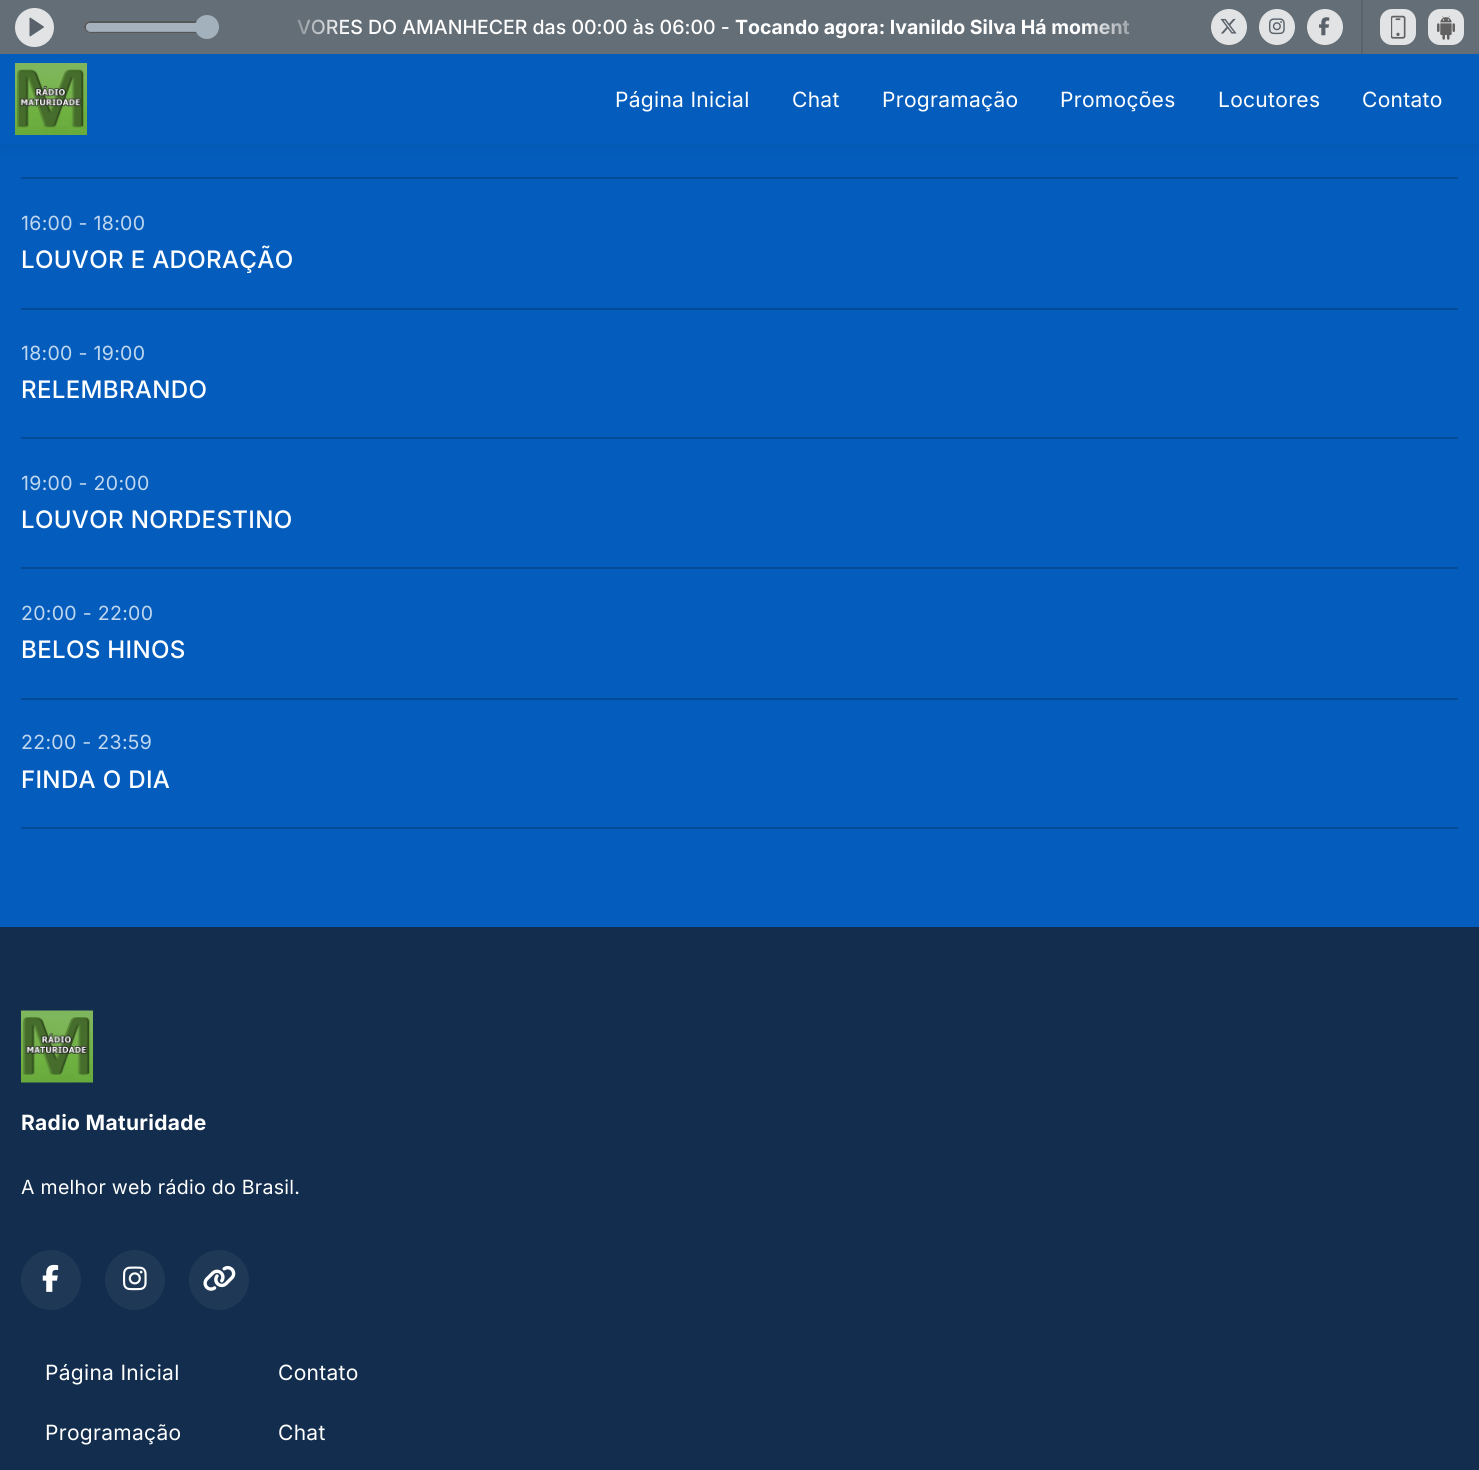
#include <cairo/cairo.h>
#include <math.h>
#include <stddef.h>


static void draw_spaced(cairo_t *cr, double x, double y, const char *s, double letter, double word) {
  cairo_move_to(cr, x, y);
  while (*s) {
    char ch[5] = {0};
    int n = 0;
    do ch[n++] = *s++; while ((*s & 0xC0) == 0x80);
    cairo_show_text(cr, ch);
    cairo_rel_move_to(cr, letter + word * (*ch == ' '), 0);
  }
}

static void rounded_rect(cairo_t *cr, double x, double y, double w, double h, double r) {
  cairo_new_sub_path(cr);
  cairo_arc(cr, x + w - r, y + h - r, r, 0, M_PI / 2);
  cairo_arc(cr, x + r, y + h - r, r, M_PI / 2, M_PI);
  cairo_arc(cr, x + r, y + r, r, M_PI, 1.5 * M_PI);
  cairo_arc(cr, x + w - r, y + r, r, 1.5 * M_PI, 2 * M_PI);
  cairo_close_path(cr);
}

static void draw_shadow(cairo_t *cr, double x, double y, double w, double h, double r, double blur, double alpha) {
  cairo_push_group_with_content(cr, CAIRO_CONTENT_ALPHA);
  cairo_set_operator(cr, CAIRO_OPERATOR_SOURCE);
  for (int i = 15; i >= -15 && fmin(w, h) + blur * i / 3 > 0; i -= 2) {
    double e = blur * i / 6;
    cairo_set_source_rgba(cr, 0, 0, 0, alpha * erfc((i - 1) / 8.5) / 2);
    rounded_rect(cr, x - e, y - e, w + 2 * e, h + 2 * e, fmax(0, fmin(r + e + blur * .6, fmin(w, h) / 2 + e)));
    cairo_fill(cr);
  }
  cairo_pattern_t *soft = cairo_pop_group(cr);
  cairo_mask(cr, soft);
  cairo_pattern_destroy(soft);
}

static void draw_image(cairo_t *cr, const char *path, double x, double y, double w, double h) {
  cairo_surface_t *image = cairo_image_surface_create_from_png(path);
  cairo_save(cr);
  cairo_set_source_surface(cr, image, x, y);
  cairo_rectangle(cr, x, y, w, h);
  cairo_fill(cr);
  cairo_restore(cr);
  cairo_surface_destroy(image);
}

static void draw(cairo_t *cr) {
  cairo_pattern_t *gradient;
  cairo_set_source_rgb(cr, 4 / 255.0, 93 / 255.0, 189 / 255.0);
  cairo_paint(cr);
  cairo_set_source_rgb(cr, 3 / 255.0, 74 / 255.0, 151 / 255.0);
  cairo_rectangle(cr, 21, 177, 1437, 2);
  cairo_fill(cr);
  cairo_set_source_rgb(cr, 0, 0, 0);
  draw_shadow(cr, 0, 57, 1479, 90, 0, 10.5, 0.07);
  cairo_set_source_rgb(cr, 100 / 255.0, 110 / 255.0, 119 / 255.0);
  cairo_rectangle(cr, 0, 0, 1479, 54);
  cairo_fill(cr);
  cairo_set_source_rgb(cr, 226 / 255.0, 227 / 255.0, 228 / 255.0);
  cairo_arc(cr, 34.5, 27.5, 19.5, 0, 2 * M_PI);
  cairo_fill(cr);
  draw_image(cr, "images/1.png", 29, 17, 15, 20);
  cairo_set_source_rgb(cr, 183 / 255.0, 189 / 255.0, 194 / 255.0);
  rounded_rect(cr, 84, 21, 125, 12, 6);
  cairo_fill(cr);
  rounded_rect(cr, 85, 22, 123, 10, 5);
  cairo_set_source_rgba(cr, 71 / 255.0, 71 / 255.0, 71 / 255.0, 0.86);
  cairo_stroke(cr);
  cairo_set_source_rgba(cr, 163 / 255.0, 177 / 255.0, 188 / 255.0, 0.86);
  rounded_rect(cr, 86, 23, 121, 9, 4.5);
  cairo_fill(cr);
  cairo_set_source_rgb(cr, 163 / 255.0, 177 / 255.0, 188 / 255.0);
  cairo_arc(cr, 207, 27, 11, 0, 2 * M_PI);
  cairo_fill_preserve(cr);
  cairo_stroke(cr);
  cairo_set_source_rgb(cr, 226 / 255.0, 227 / 255.0, 228 / 255.0);
  cairo_arc(cr, 1229, 27, 18, 0, 2 * M_PI);
  cairo_fill(cr);
  draw_image(cr, "images/2.png", 1220, 18, 17, 16);
  cairo_arc(cr, 1277, 27, 18, 0, 2 * M_PI);
  cairo_fill(cr);
  draw_image(cr, "images/3.png", 1269, 18, 16, 17);
  cairo_arc(cr, 1325, 27, 18, 0, 2 * M_PI);
  cairo_fill(cr);
  draw_image(cr, "images/4.png", 1319, 17, 11, 19);
  cairo_set_source_rgb(cr, 90 / 255.0, 99 / 255.0, 107 / 255.0);
  cairo_rectangle(cr, 1361, 0, 2, 54);
  cairo_fill(cr);
  cairo_set_source_rgb(cr, 226 / 255.0, 227 / 255.0, 228 / 255.0);
  rounded_rect(cr, 1380, 9, 36, 36, 12);
  cairo_fill(cr);
  draw_image(cr, "images/5.png", 1391, 15, 15, 24);
  rounded_rect(cr, 1428, 9, 36, 36, 12);
  cairo_fill(cr);
  draw_image(cr, "images/6.png", 1437, 15, 18, 25);
  cairo_set_source_rgb(cr, 4 / 255.0, 93 / 255.0, 189 / 255.0);
  cairo_rectangle(cr, 0, 54, 1479, 90);
  cairo_fill(cr);
  draw_image(cr, "images/7.png", 15, 63, 72, 72);
  cairo_set_source_rgb(cr, 3 / 255.0, 74 / 255.0, 151 / 255.0);
  cairo_rectangle(cr, 21, 308, 1437, 2);
  cairo_fill(cr);
  cairo_rectangle(cr, 21, 437, 1437, 2);
  cairo_fill(cr);
  cairo_rectangle(cr, 21, 567, 1437, 2);
  cairo_fill(cr);
  cairo_rectangle(cr, 21, 698, 1437, 2);
  cairo_fill(cr);
  cairo_rectangle(cr, 21, 827, 1437, 2);
  cairo_fill(cr);
  cairo_set_source_rgb(cr, 18 / 255.0, 45 / 255.0, 77 / 255.0);
  cairo_rectangle(cr, 0, 927, 1479, 543);
  cairo_fill(cr);
  draw_image(cr, "images/8.png", 21, 1010, 72, 73);
  cairo_set_source_rgb(cr, 30 / 255.0, 56 / 255.0, 86 / 255.0);
  cairo_arc(cr, 51, 1280, 30, 0, 2 * M_PI);
  cairo_fill(cr);
  draw_image(cr, "images/9.png", 42, 1264, 17, 28);
  cairo_arc(cr, 135, 1280, 30, 0, 2 * M_PI);
  cairo_fill(cr);
  draw_image(cr, "images/10.png", 123, 1266, 24, 25);
  cairo_arc(cr, 219, 1280, 30, 0, 2 * M_PI);
  cairo_fill(cr);
  draw_image(cr, "images/11.png", 203, 1266, 33, 25);
  cairo_select_font_face(cr, "Inter Medium", CAIRO_FONT_SLANT_NORMAL, CAIRO_FONT_WEIGHT_NORMAL);
  cairo_set_font_size(cr, 19.5);
  cairo_set_source_rgb(cr, 1, 1, 1);
  cairo_move_to(cr, 297, 34);
  cairo_show_text(cr, "VORES DO AMANHECER das 00:00 às 06:00 -");
  cairo_select_font_face(cr, "Inter", CAIRO_FONT_SLANT_NORMAL, CAIRO_FONT_WEIGHT_BOLD);
  cairo_move_to(cr, 735, 34);
  cairo_show_text(cr, "Tocando agora: Ivanildo Silva Há moment");
  gradient = cairo_pattern_create_linear(257, 27, 348, 27);
  cairo_pattern_add_color_stop_rgba(gradient, 0.2, 100 / 255.0, 110 / 255.0, 119 / 255.0, 1);
  cairo_pattern_add_color_stop_rgba(gradient, 1, 100 / 255.0, 110 / 255.0, 119 / 255.0, 0);
  cairo_set_source(cr, gradient);
  cairo_pattern_destroy(gradient);
  cairo_rectangle(cr, 297, 19, 49, 16);
  cairo_fill(cr);
  gradient = cairo_pattern_create_linear(1175, 27, 1083, 27);
  cairo_pattern_add_color_stop_rgba(gradient, 0.2, 100 / 255.0, 110 / 255.0, 119 / 255.0, 1);
  cairo_pattern_add_color_stop_rgba(gradient, 1, 100 / 255.0, 110 / 255.0, 119 / 255.0, 0);
  cairo_set_source(cr, gradient);
  cairo_pattern_destroy(gradient);
  cairo_rectangle(cr, 1085, 20, 45, 15);
  cairo_fill(cr);
  cairo_select_font_face(cr, "Inter", CAIRO_FONT_SLANT_NORMAL, CAIRO_FONT_WEIGHT_NORMAL);
  cairo_set_font_size(cr, 21);
  cairo_set_source_rgb(cr, 1, 1, 1);
  draw_spaced(cr, 615, 107, "Página Inicial", 0.3, 0);
  draw_spaced(cr, 792, 107, "Chat", 0.3, 0);
  draw_spaced(cr, 882, 107, "Programação", 0.3, 0);
  draw_spaced(cr, 1060, 107, "Promoções", 0.3, 0);
  draw_spaced(cr, 1218, 107, "Locutores", 0.3, 0);
  draw_spaced(cr, 1362, 107, "Contato", 0.3, 0);
  cairo_set_font_size(cr, 19.5);
  cairo_set_source_rgb(cr, 192 / 255.0, 215 / 255.0, 239 / 255.0);
  draw_spaced(cr, 21, 230, "16:00 - 18:00", 0.3, 0);
  cairo_select_font_face(cr, "Inter Medium", CAIRO_FONT_SLANT_NORMAL, CAIRO_FONT_WEIGHT_NORMAL);
  cairo_set_font_size(cr, 24.1);
  cairo_set_source_rgb(cr, 1, 1, 1);
  draw_spaced(cr, 21, 268, "LOUVOR E ADORAÇÃO", 0.3, 0);
  cairo_select_font_face(cr, "Inter", CAIRO_FONT_SLANT_NORMAL, CAIRO_FONT_WEIGHT_NORMAL);
  cairo_set_font_size(cr, 19.5);
  cairo_set_source_rgb(cr, 192 / 255.0, 215 / 255.0, 239 / 255.0);
  draw_spaced(cr, 21, 360, "18:00 - 19:00", 0.3, 0);
  cairo_select_font_face(cr, "Inter Medium", CAIRO_FONT_SLANT_NORMAL, CAIRO_FONT_WEIGHT_NORMAL);
  cairo_set_font_size(cr, 24.1);
  cairo_set_source_rgb(cr, 1, 1, 1);
  draw_spaced(cr, 21, 398, "RELEMBRANDO", 0.3, 0);
  cairo_select_font_face(cr, "Inter", CAIRO_FONT_SLANT_NORMAL, CAIRO_FONT_WEIGHT_NORMAL);
  cairo_set_font_size(cr, 19.5);
  cairo_set_source_rgb(cr, 192 / 255.0, 215 / 255.0, 239 / 255.0);
  draw_spaced(cr, 21, 490, "19:00 - 20:00", 0.3, 0);
  cairo_select_font_face(cr, "Inter Medium", CAIRO_FONT_SLANT_NORMAL, CAIRO_FONT_WEIGHT_NORMAL);
  cairo_set_font_size(cr, 24.1);
  cairo_set_source_rgb(cr, 1, 1, 1);
  draw_spaced(cr, 21, 528, "LOUVOR NORDESTINO", 0.3, 0);
  cairo_select_font_face(cr, "Inter", CAIRO_FONT_SLANT_NORMAL, CAIRO_FONT_WEIGHT_NORMAL);
  cairo_set_font_size(cr, 19.5);
  cairo_set_source_rgb(cr, 192 / 255.0, 215 / 255.0, 239 / 255.0);
  draw_spaced(cr, 21, 620, "20:00 - 22:00", 0.3, 0);
  cairo_select_font_face(cr, "Inter Medium", CAIRO_FONT_SLANT_NORMAL, CAIRO_FONT_WEIGHT_NORMAL);
  cairo_set_font_size(cr, 24.1);
  cairo_set_source_rgb(cr, 1, 1, 1);
  draw_spaced(cr, 21, 658, "BELOS HINOS", 0.3, 0);
  cairo_select_font_face(cr, "Inter", CAIRO_FONT_SLANT_NORMAL, CAIRO_FONT_WEIGHT_NORMAL);
  cairo_set_font_size(cr, 19.5);
  cairo_set_source_rgb(cr, 192 / 255.0, 215 / 255.0, 239 / 255.0);
  draw_spaced(cr, 21, 749, "22:00 - 23:59", 0.3, 0);
  cairo_select_font_face(cr, "Inter Medium", CAIRO_FONT_SLANT_NORMAL, CAIRO_FONT_WEIGHT_NORMAL);
  cairo_set_font_size(cr, 24.1);
  cairo_set_source_rgb(cr, 1, 1, 1);
  draw_spaced(cr, 21, 788, "FINDA O DIA", 0.3, 0);
  cairo_select_font_face(cr, "Inter", CAIRO_FONT_SLANT_NORMAL, CAIRO_FONT_WEIGHT_BOLD);
  cairo_set_font_size(cr, 21);
  draw_spaced(cr, 21, 1130, "Radio Maturidade", 0.3, 0);
  cairo_select_font_face(cr, "Inter", CAIRO_FONT_SLANT_NORMAL, CAIRO_FONT_WEIGHT_NORMAL);
  cairo_set_font_size(cr, 19.5);
  draw_spaced(cr, 21, 1194, "A melhor web rádio do Brasil.", 0.3, 0);
  cairo_set_font_size(cr, 21);
  draw_spaced(cr, 45, 1380, "Página Inicial", 0.3, 0);
  draw_spaced(cr, 278, 1380, "Contato", 0.3, 0);
  draw_spaced(cr, 45, 1440, "Programação", 0.3, 0);
  draw_spaced(cr, 278, 1440, "Chat", 0.3, 0);
}

int main(void) {
  cairo_surface_t *surface = cairo_image_surface_create(CAIRO_FORMAT_RGB24, 1479, 1470);
  cairo_t *cr = cairo_create(surface);
  cairo_font_options_t *options = cairo_font_options_create();
  cairo_font_options_set_hint_metrics(options, CAIRO_HINT_METRICS_OFF);
  cairo_font_options_set_hint_style(options, CAIRO_HINT_STYLE_NONE);
  cairo_set_font_options(cr, options);
  cairo_set_miter_limit(cr, 4);
  draw(cr);
  cairo_surface_write_to_png(surface, "out.png");
  cairo_font_options_destroy(options);
  cairo_destroy(cr);
  cairo_surface_destroy(surface);
  return 0;
}
